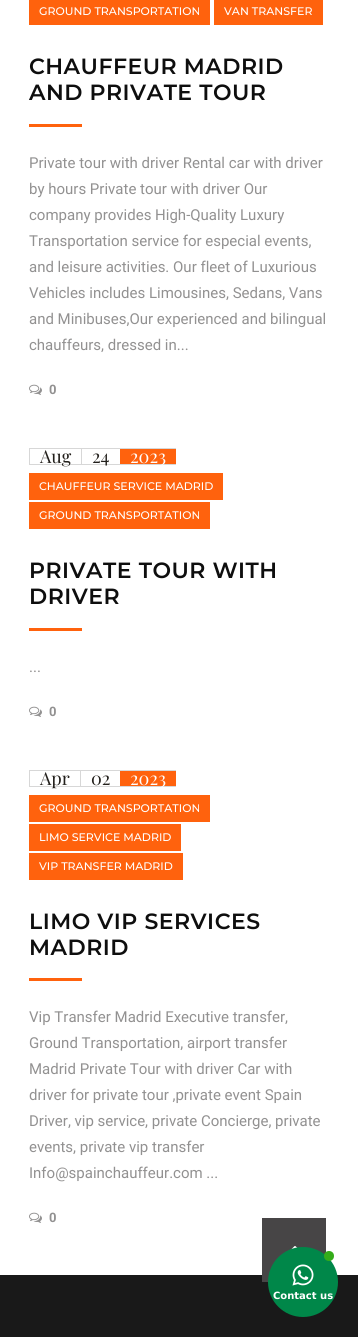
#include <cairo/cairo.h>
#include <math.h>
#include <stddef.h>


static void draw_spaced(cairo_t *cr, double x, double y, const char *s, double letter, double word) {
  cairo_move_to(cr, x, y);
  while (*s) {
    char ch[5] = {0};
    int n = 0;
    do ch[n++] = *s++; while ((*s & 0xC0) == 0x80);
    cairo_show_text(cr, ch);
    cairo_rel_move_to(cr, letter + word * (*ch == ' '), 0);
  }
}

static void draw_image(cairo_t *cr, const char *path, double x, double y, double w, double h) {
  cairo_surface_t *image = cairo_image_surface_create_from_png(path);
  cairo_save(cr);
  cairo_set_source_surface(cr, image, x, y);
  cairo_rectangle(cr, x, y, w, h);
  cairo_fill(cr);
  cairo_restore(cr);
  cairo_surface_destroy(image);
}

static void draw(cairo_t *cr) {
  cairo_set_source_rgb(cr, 1, 1, 1);
  cairo_paint(cr);
  cairo_set_source_rgb(cr, 1, 98 / 255.0, 13 / 255.0);
  cairo_rectangle(cr, 29, 0, 181, 25);
  cairo_fill(cr);
  cairo_rectangle(cr, 214, 0, 109, 25);
  cairo_fill(cr);
  cairo_rectangle(cr, 29, 124, 53, 3);
  cairo_fill(cr);
  draw_image(cr, "images/1.png", 29, 384, 13, 11);
  cairo_rectangle(cr, 29.5, 448.5, 52, 16);
  cairo_set_source_rgb(cr, 215 / 255.0, 215 / 255.0, 215 / 255.0);
  cairo_set_line_width(cr, 1);
  cairo_stroke(cr);
  cairo_rectangle(cr, 82, 448, 94, 1);
  cairo_fill(cr);
  cairo_rectangle(cr, 82, 464, 94, 1);
  cairo_fill(cr);
  cairo_set_source_rgb(cr, 1, 98 / 255.0, 13 / 255.0);
  cairo_rectangle(cr, 120, 449, 56, 15);
  cairo_fill(cr);
  cairo_rectangle(cr, 29, 473, 194, 27);
  cairo_fill(cr);
  cairo_rectangle(cr, 29, 502, 181, 27);
  cairo_fill(cr);
  cairo_rectangle(cr, 29, 628, 53, 3);
  cairo_fill(cr);
  draw_image(cr, "images/1.png", 29, 706, 13, 11);
  cairo_rectangle(cr, 29.5, 770.5, 51, 16);
  cairo_set_source_rgb(cr, 215 / 255.0, 215 / 255.0, 215 / 255.0);
  cairo_stroke(cr);
  cairo_rectangle(cr, 81, 770, 95, 1);
  cairo_fill(cr);
  cairo_rectangle(cr, 81, 786, 95, 1);
  cairo_fill(cr);
  cairo_set_source_rgb(cr, 1, 98 / 255.0, 13 / 255.0);
  cairo_rectangle(cr, 120, 771, 56, 15);
  cairo_fill(cr);
  cairo_rectangle(cr, 29, 795, 181, 27);
  cairo_fill(cr);
  cairo_rectangle(cr, 29, 824, 152, 27);
  cairo_fill(cr);
  cairo_rectangle(cr, 29, 853, 154, 27);
  cairo_fill(cr);
  cairo_rectangle(cr, 29, 978, 53, 3);
  cairo_fill(cr);
  draw_image(cr, "images/1.png", 29, 1212, 13, 11);
  cairo_set_source_rgb(cr, 25 / 255.0, 25 / 255.0, 25 / 255.0);
  cairo_rectangle(cr, 0, 1275, 358, 62);
  cairo_fill(cr);
  cairo_set_source_rgb(cr, 71 / 255.0, 69 / 255.0, 70 / 255.0);
  cairo_rectangle(cr, 262, 1218, 64, 64);
  cairo_fill(cr);
  draw_image(cr, "images/2.png", 290, 1246, 8, 4);
  cairo_set_source_rgb(cr, 0, 135 / 255.0, 73 / 255.0);
  cairo_arc(cr, 303, 1282, 35, 0, 2 * M_PI);
  cairo_fill(cr);
  cairo_set_source_rgb(cr, 53 / 255.0, 172 / 255.0, 25 / 255.0);
  cairo_arc(cr, 329, 1256, 5, 0, 2 * M_PI);
  cairo_fill(cr);
  draw_image(cr, "images/3.png", 292, 1264, 22, 22);
  cairo_select_font_face(cr, "Montserrat Medium", CAIRO_FONT_SLANT_NORMAL, CAIRO_FONT_WEIGHT_NORMAL);
  cairo_set_font_size(cr, 11);
  cairo_set_source_rgb(cr, 1, 1, 1);
  cairo_move_to(cr, 39, 15);
  cairo_show_text(cr, "GROUND TRANSPORTATION");
  cairo_move_to(cr, 224, 15);
  cairo_show_text(cr, "VAN TRANSFER");
  cairo_select_font_face(cr, "Montserrat SemiBold", CAIRO_FONT_SLANT_NORMAL, CAIRO_FONT_WEIGHT_NORMAL);
  cairo_set_font_size(cr, 22);
  cairo_set_source_rgb(cr, 14 / 255.0, 14 / 255.0, 14 / 255.0);
  draw_spaced(cr, 29, 74, "CHAUFFEUR MADRID", 0.5, 0);
  draw_spaced(cr, 29, 100, "AND PRIVATE TOUR", 0.5, 0);
  cairo_select_font_face(cr, "Roboto", CAIRO_FONT_SLANT_NORMAL, CAIRO_FONT_WEIGHT_NORMAL);
  cairo_set_font_size(cr, 15);
  cairo_set_source_rgb(cr, 146 / 255.0, 145 / 255.0, 145 / 255.0);
  cairo_move_to(cr, 29, 168);
  cairo_show_text(cr, "Private tour with driver Rental car with driver");
  cairo_move_to(cr, 29, 194);
  cairo_show_text(cr, "by hours Private tour with driver Our");
  cairo_move_to(cr, 29, 220);
  cairo_show_text(cr, "company provides High-Quality Luxury");
  cairo_move_to(cr, 29, 246);
  cairo_show_text(cr, "Transportation service for especial events,");
  cairo_move_to(cr, 29, 272);
  cairo_show_text(cr, "and leisure activities. Our fleet of Luxurious");
  cairo_move_to(cr, 29, 298);
  cairo_show_text(cr, "Vehicles includes Limousines, Sedans, Vans");
  cairo_move_to(cr, 29, 324);
  cairo_show_text(cr, "and Minibuses,Our experienced and bilingual");
  cairo_move_to(cr, 29, 350);
  cairo_show_text(cr, "chauffeurs, dressed in...");
  cairo_select_font_face(cr, "Roboto", CAIRO_FONT_SLANT_NORMAL, CAIRO_FONT_WEIGHT_BOLD);
  cairo_set_font_size(cr, 13);
  cairo_move_to(cr, 49, 394);
  cairo_show_text(cr, "0");
  cairo_select_font_face(cr, "Playfair Display", CAIRO_FONT_SLANT_NORMAL, CAIRO_FONT_WEIGHT_NORMAL);
  cairo_set_font_size(cr, 18);
  cairo_set_source_rgb(cr, 34 / 255.0, 31 / 255.0, 27 / 255.0);
  cairo_move_to(cr, 40, 463);
  cairo_show_text(cr, "Aug");
  cairo_move_to(cr, 92, 463);
  cairo_show_text(cr, "24");
  cairo_set_source_rgb(cr, 1, 1, 1);
  cairo_move_to(cr, 130, 463);
  cairo_show_text(cr, "2023");
  cairo_select_font_face(cr, "Montserrat Medium", CAIRO_FONT_SLANT_NORMAL, CAIRO_FONT_WEIGHT_NORMAL);
  cairo_set_font_size(cr, 11);
  cairo_move_to(cr, 39, 490);
  cairo_show_text(cr, "CHAUFFEUR SERVICE MADRID");
  cairo_move_to(cr, 39, 519);
  cairo_show_text(cr, "GROUND TRANSPORTATION");
  cairo_select_font_face(cr, "Montserrat SemiBold", CAIRO_FONT_SLANT_NORMAL, CAIRO_FONT_WEIGHT_NORMAL);
  cairo_set_font_size(cr, 22);
  cairo_set_source_rgb(cr, 14 / 255.0, 14 / 255.0, 14 / 255.0);
  draw_spaced(cr, 29, 578, "PRIVATE TOUR WITH", 0.5, 0);
  draw_spaced(cr, 29, 604, "DRIVER", 0.5, 0);
  cairo_select_font_face(cr, "Roboto", CAIRO_FONT_SLANT_NORMAL, CAIRO_FONT_WEIGHT_NORMAL);
  cairo_set_font_size(cr, 15);
  cairo_set_source_rgb(cr, 146 / 255.0, 145 / 255.0, 145 / 255.0);
  cairo_move_to(cr, 29, 672);
  cairo_show_text(cr, "...");
  cairo_select_font_face(cr, "Roboto", CAIRO_FONT_SLANT_NORMAL, CAIRO_FONT_WEIGHT_BOLD);
  cairo_set_font_size(cr, 13);
  cairo_move_to(cr, 49, 716);
  cairo_show_text(cr, "0");
  cairo_select_font_face(cr, "Playfair Display", CAIRO_FONT_SLANT_NORMAL, CAIRO_FONT_WEIGHT_NORMAL);
  cairo_set_font_size(cr, 18);
  cairo_set_source_rgb(cr, 34 / 255.0, 31 / 255.0, 27 / 255.0);
  cairo_move_to(cr, 40, 785);
  cairo_show_text(cr, "Apr");
  cairo_move_to(cr, 91, 785);
  cairo_show_text(cr, "02");
  cairo_set_source_rgb(cr, 1, 1, 1);
  cairo_move_to(cr, 130, 785);
  cairo_show_text(cr, "2023");
  cairo_select_font_face(cr, "Montserrat Medium", CAIRO_FONT_SLANT_NORMAL, CAIRO_FONT_WEIGHT_NORMAL);
  cairo_set_font_size(cr, 11);
  cairo_move_to(cr, 39, 812);
  cairo_show_text(cr, "GROUND TRANSPORTATION");
  cairo_move_to(cr, 39, 841);
  cairo_show_text(cr, "LIMO SERVICE MADRID");
  cairo_move_to(cr, 39, 870);
  cairo_show_text(cr, "VIP TRANSFER MADRID");
  cairo_select_font_face(cr, "Montserrat SemiBold", CAIRO_FONT_SLANT_NORMAL, CAIRO_FONT_WEIGHT_NORMAL);
  cairo_set_font_size(cr, 22);
  cairo_set_source_rgb(cr, 14 / 255.0, 14 / 255.0, 14 / 255.0);
  draw_spaced(cr, 29, 929, "LIMO VIP SERVICES", 0.5, 0);
  draw_spaced(cr, 29, 955, "MADRID", 0.5, 0);
  cairo_select_font_face(cr, "Roboto", CAIRO_FONT_SLANT_NORMAL, CAIRO_FONT_WEIGHT_NORMAL);
  cairo_set_font_size(cr, 15);
  cairo_set_source_rgb(cr, 146 / 255.0, 145 / 255.0, 145 / 255.0);
  cairo_move_to(cr, 29, 1022);
  cairo_show_text(cr, "Vip Transfer Madrid Executive transfer,");
  cairo_move_to(cr, 29, 1048);
  cairo_show_text(cr, "Ground Transportation, airport transfer");
  cairo_move_to(cr, 29, 1074);
  cairo_show_text(cr, "Madrid Private Tour with driver Car with");
  cairo_move_to(cr, 29, 1100);
  cairo_show_text(cr, "driver for private tour ,private event Spain");
  cairo_move_to(cr, 29, 1126);
  cairo_show_text(cr, "Driver, vip service, private Concierge, private");
  cairo_move_to(cr, 29, 1152);
  cairo_show_text(cr, "events, private vip transfer");
  cairo_move_to(cr, 29, 1178);
  cairo_show_text(cr, "Info@spainchauffeur.com ...");
  cairo_select_font_face(cr, "Roboto", CAIRO_FONT_SLANT_NORMAL, CAIRO_FONT_WEIGHT_BOLD);
  cairo_set_font_size(cr, 13);
  cairo_move_to(cr, 49, 1222);
  cairo_show_text(cr, "0");
  cairo_select_font_face(cr, "DejaVu Sans", CAIRO_FONT_SLANT_NORMAL, CAIRO_FONT_WEIGHT_BOLD);
  cairo_set_font_size(cr, 10);
  cairo_set_source_rgb(cr, 1, 1, 1);
  cairo_move_to(cr, 273, 1299);
  cairo_show_text(cr, "Contact us");
}

int main(void) {
  cairo_surface_t *surface = cairo_image_surface_create(CAIRO_FORMAT_RGB24, 358, 1337);
  cairo_t *cr = cairo_create(surface);
  cairo_font_options_t *options = cairo_font_options_create();
  cairo_font_options_set_hint_metrics(options, CAIRO_HINT_METRICS_OFF);
  cairo_font_options_set_hint_style(options, CAIRO_HINT_STYLE_NONE);
  cairo_set_font_options(cr, options);
  cairo_set_miter_limit(cr, 4);
  draw(cr);
  cairo_surface_write_to_png(surface, "out.png");
  cairo_font_options_destroy(options);
  cairo_destroy(cr);
  cairo_surface_destroy(surface);
  return 0;
}
